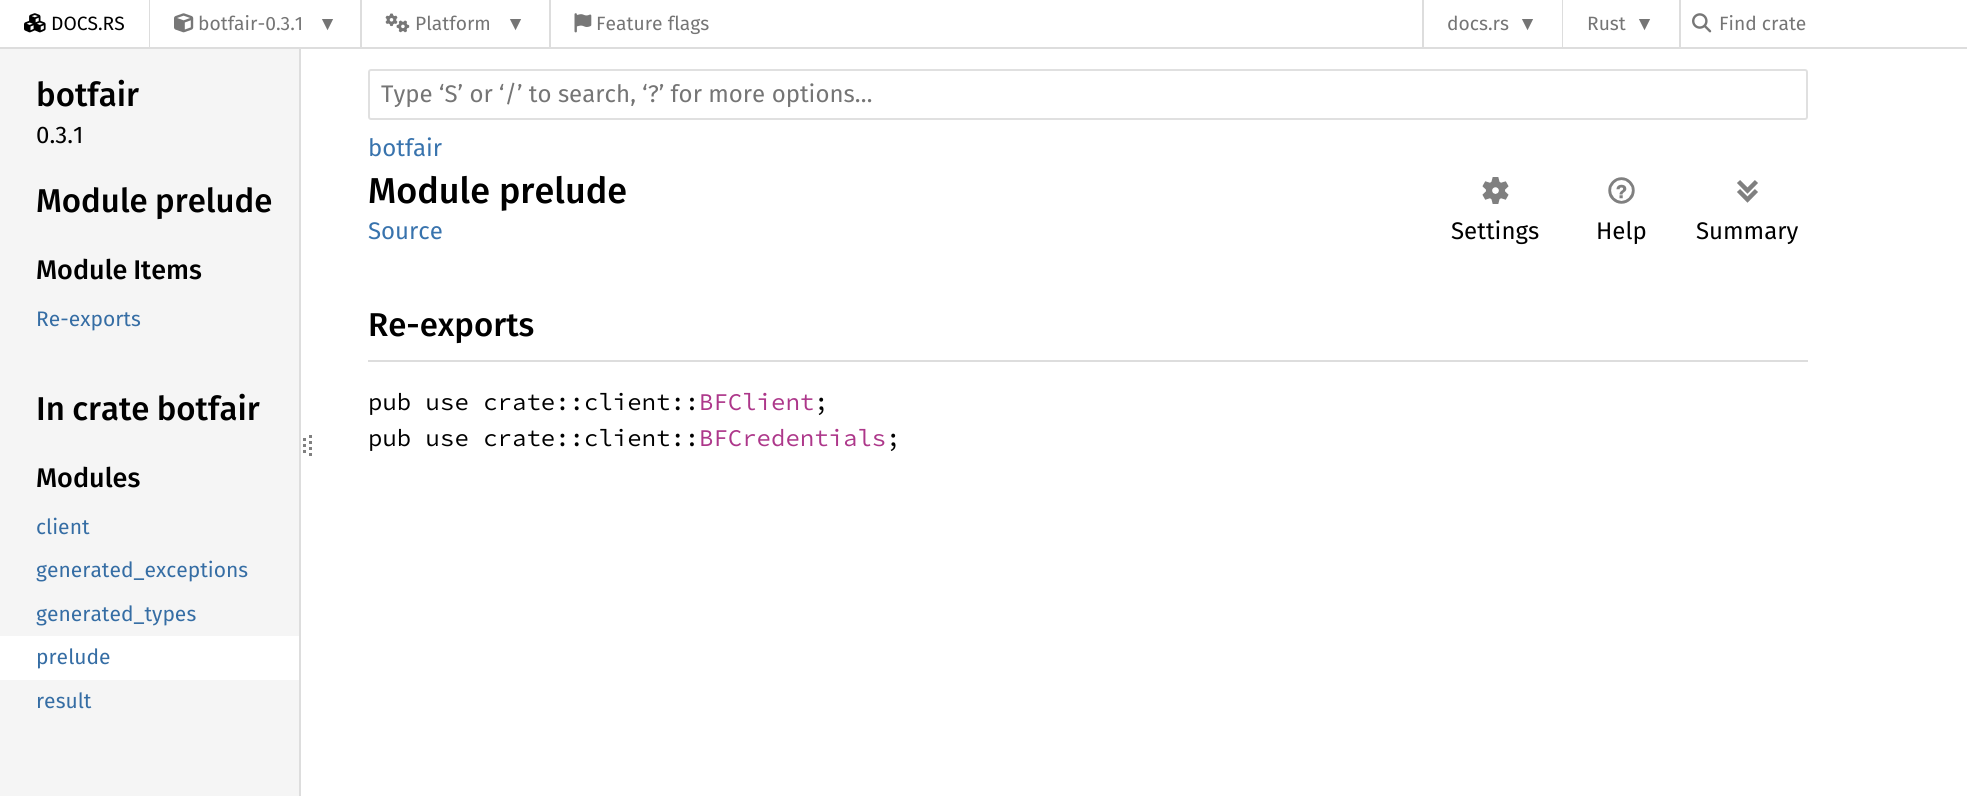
#include <cairo/cairo.h>
#include <math.h>
#include <stddef.h>


static void draw_spaced(cairo_t *cr, double x, double y, const char *s, double letter, double word) {
  cairo_move_to(cr, x, y);
  while (*s) {
    char ch[5] = {0};
    int n = 0;
    do ch[n++] = *s++; while ((*s & 0xC0) == 0x80);
    cairo_show_text(cr, ch);
    cairo_rel_move_to(cr, letter + word * (*ch == ' '), 0);
  }
}

static void rounded_rect(cairo_t *cr, double x, double y, double w, double h, double r) {
  cairo_new_sub_path(cr);
  cairo_arc(cr, x + w - r, y + h - r, r, 0, M_PI / 2);
  cairo_arc(cr, x + r, y + h - r, r, M_PI / 2, M_PI);
  cairo_arc(cr, x + r, y + r, r, M_PI, 1.5 * M_PI);
  cairo_arc(cr, x + w - r, y + r, r, 1.5 * M_PI, 2 * M_PI);
  cairo_close_path(cr);
}

static void draw_image(cairo_t *cr, const char *path, double x, double y, double w, double h) {
  cairo_surface_t *image = cairo_image_surface_create_from_png(path);
  cairo_save(cr);
  cairo_set_source_surface(cr, image, x, y);
  cairo_rectangle(cr, x, y, w, h);
  cairo_fill(cr);
  cairo_restore(cr);
  cairo_surface_destroy(image);
}

static void draw(cairo_t *cr) {
  cairo_set_source_rgb(cr, 1, 1, 1);
  cairo_paint(cr);
  cairo_set_source_rgb(cr, 221 / 255.0, 221 / 255.0, 221 / 255.0);
  cairo_rectangle(cr, 299, 48, 2, 748);
  cairo_fill(cr);
  cairo_rectangle(cr, 0, 47, 1967, 2);
  cairo_fill(cr);
  draw_image(cr, "images/1.png", 24, 13, 22, 20);
  cairo_rectangle(cr, 149, 0, 1, 47);
  cairo_fill(cr);
  draw_image(cr, "images/2.png", 174, 13, 20, 20);
  cairo_rectangle(cr, 360, 0, 2, 47);
  cairo_fill(cr);
  draw_image(cr, "images/3.png", 385, 13, 25, 20);
  cairo_rectangle(cr, 549, 0, 2, 47);
  cairo_fill(cr);
  draw_image(cr, "images/4.png", 574, 13, 18, 20);
  cairo_rectangle(cr, 1422, 0, 2, 47);
  cairo_fill(cr);
  cairo_rectangle(cr, 1562, 0, 1, 47);
  cairo_fill(cr);
  cairo_rectangle(cr, 1679, 0, 2, 47);
  cairo_fill(cr);
  draw_image(cr, "images/5.png", 1692, 13, 20, 20);
  cairo_set_source_rgb(cr, 245 / 255.0, 245 / 255.0, 245 / 255.0);
  cairo_rectangle(cr, 0, 49, 299, 747);
  cairo_fill(cr);
  cairo_set_source_rgb(cr, 1, 1, 1);
  cairo_rectangle(cr, 0, 636, 299, 44);
  cairo_fill(cr);
  cairo_new_path(cr);
  cairo_move_to(cr, 304.5, 438);
  cairo_line_to(cr, 304.5, 441);
  cairo_move_to(cr, 304.5, 444);
  cairo_line_to(cr, 304.5, 447);
  cairo_move_to(cr, 304.5, 450);
  cairo_line_to(cr, 304.5, 453);
  cairo_set_source_rgb(cr, 128 / 255.0, 128 / 255.0, 128 / 255.0);
  cairo_set_line_width(cr, 3);
  cairo_stroke(cr);
  cairo_new_path(cr);
  cairo_move_to(cr, 310.5, 435);
  cairo_line_to(cr, 310.5, 459);
  cairo_set_dash(cr, (double[]){3, 3}, 2, 0);
  cairo_stroke(cr);
  rounded_rect(cr, 369, 70, 1438, 49, 2);
  cairo_set_source_rgb(cr, 224 / 255.0, 224 / 255.0, 224 / 255.0);
  cairo_set_line_width(cr, 2);
  cairo_set_dash(cr, NULL, 0, 0);
  cairo_stroke(cr);
  draw_image(cr, "images/6.png", 1482, 177, 27, 27);
  draw_image(cr, "images/7.png", 1608, 177, 27, 27);
  draw_image(cr, "images/8.png", 1737, 180, 21, 23);
  cairo_set_source_rgb(cr, 221 / 255.0, 221 / 255.0, 221 / 255.0);
  cairo_rectangle(cr, 368, 360, 1440, 2);
  cairo_fill(cr);
  cairo_select_font_face(cr, "Fira Sans", CAIRO_FONT_SLANT_NORMAL, CAIRO_FONT_WEIGHT_NORMAL);
  cairo_set_font_size(cr, 19.25);
  cairo_set_source_rgb(cr, 0, 0, 0);
  cairo_move_to(cr, 51, 30);
  cairo_show_text(cr, "DOCS.RS");
  cairo_set_source_rgb(cr, 117 / 255.0, 117 / 255.0, 117 / 255.0);
  cairo_move_to(cr, 198, 30);
  cairo_show_text(cr, "botfair-0.3.1");
  cairo_select_font_face(cr, "Liberation Sans", CAIRO_FONT_SLANT_NORMAL, CAIRO_FONT_WEIGHT_NORMAL);
  cairo_move_to(cr, 318, 30);
  cairo_show_text(cr, "▼");
  cairo_select_font_face(cr, "Fira Sans", CAIRO_FONT_SLANT_NORMAL, CAIRO_FONT_WEIGHT_NORMAL);
  cairo_move_to(cr, 415, 30);
  cairo_show_text(cr, "Platform");
  cairo_select_font_face(cr, "Liberation Sans", CAIRO_FONT_SLANT_NORMAL, CAIRO_FONT_WEIGHT_NORMAL);
  cairo_move_to(cr, 506, 30);
  cairo_show_text(cr, "▼");
  cairo_select_font_face(cr, "Fira Sans", CAIRO_FONT_SLANT_NORMAL, CAIRO_FONT_WEIGHT_NORMAL);
  cairo_move_to(cr, 596, 30);
  cairo_show_text(cr, "Feature flags");
  cairo_move_to(cr, 1447, 30);
  cairo_show_text(cr, "docs.rs");
  cairo_select_font_face(cr, "Liberation Sans", CAIRO_FONT_SLANT_NORMAL, CAIRO_FONT_WEIGHT_NORMAL);
  cairo_move_to(cr, 1518, 30);
  cairo_show_text(cr, "▼");
  cairo_select_font_face(cr, "Fira Sans", CAIRO_FONT_SLANT_NORMAL, CAIRO_FONT_WEIGHT_NORMAL);
  cairo_move_to(cr, 1587, 30);
  cairo_show_text(cr, "Rust");
  cairo_select_font_face(cr, "Liberation Sans", CAIRO_FONT_SLANT_NORMAL, CAIRO_FONT_WEIGHT_NORMAL);
  cairo_move_to(cr, 1635, 30);
  cairo_show_text(cr, "▼");
  cairo_select_font_face(cr, "Fira Sans", CAIRO_FONT_SLANT_NORMAL, CAIRO_FONT_WEIGHT_NORMAL);
  cairo_move_to(cr, 1719, 30);
  cairo_show_text(cr, "Find crate");
  cairo_select_font_face(cr, "Fira Sans Medium", CAIRO_FONT_SLANT_NORMAL, CAIRO_FONT_WEIGHT_NORMAL);
  cairo_set_font_size(cr, 33);
  cairo_set_source_rgb(cr, 0, 0, 0);
  cairo_move_to(cr, 36, 106);
  cairo_show_text(cr, "botfair");
  cairo_select_font_face(cr, "Fira Sans", CAIRO_FONT_SLANT_NORMAL, CAIRO_FONT_WEIGHT_NORMAL);
  cairo_set_font_size(cr, 24);
  cairo_move_to(cr, 36, 143);
  cairo_show_text(cr, "0.3.1");
  cairo_select_font_face(cr, "Fira Sans Medium", CAIRO_FONT_SLANT_NORMAL, CAIRO_FONT_WEIGHT_NORMAL);
  cairo_set_font_size(cr, 33);
  draw_spaced(cr, 36, 212, "Module prelude", 0, -1);
  cairo_set_font_size(cr, 27);
  draw_spaced(cr, 36, 279, "Module Items", 0, -1);
  cairo_select_font_face(cr, "Fira Sans", CAIRO_FONT_SLANT_NORMAL, CAIRO_FONT_WEIGHT_NORMAL);
  cairo_set_font_size(cr, 21);
  cairo_set_source_rgb(cr, 53 / 255.0, 109 / 255.0, 164 / 255.0);
  cairo_move_to(cr, 36, 326);
  cairo_show_text(cr, "Re-exports");
  cairo_select_font_face(cr, "Fira Sans Medium", CAIRO_FONT_SLANT_NORMAL, CAIRO_FONT_WEIGHT_NORMAL);
  cairo_set_font_size(cr, 33);
  cairo_set_source_rgb(cr, 0, 0, 0);
  draw_spaced(cr, 36, 420, "In crate botfair", 0, -1);
  cairo_set_font_size(cr, 27);
  cairo_move_to(cr, 36, 487);
  cairo_show_text(cr, "Modules");
  cairo_select_font_face(cr, "Fira Sans", CAIRO_FONT_SLANT_NORMAL, CAIRO_FONT_WEIGHT_NORMAL);
  cairo_set_font_size(cr, 21);
  cairo_set_source_rgb(cr, 53 / 255.0, 109 / 255.0, 164 / 255.0);
  cairo_move_to(cr, 36, 534);
  cairo_show_text(cr, "client");
  cairo_move_to(cr, 36, 577);
  cairo_show_text(cr, "generated_exceptions");
  cairo_move_to(cr, 36, 621);
  cairo_show_text(cr, "generated_types");
  cairo_move_to(cr, 36, 664);
  cairo_show_text(cr, "prelude");
  cairo_move_to(cr, 36, 708);
  cairo_show_text(cr, "result");
  cairo_set_font_size(cr, 24);
  cairo_set_source_rgb(cr, 117 / 255.0, 117 / 255.0, 117 / 255.0);
  cairo_move_to(cr, 381, 102);
  cairo_show_text(cr, "Type ‘S’ or ‘/’ to search, ‘?’ for more options…");
  cairo_set_source_rgb(cr, 56 / 255.0, 115 / 255.0, 173 / 255.0);
  cairo_move_to(cr, 368, 156);
  cairo_show_text(cr, "botfair");
  cairo_select_font_face(cr, "Fira Sans Medium", CAIRO_FONT_SLANT_NORMAL, CAIRO_FONT_WEIGHT_NORMAL);
  cairo_set_font_size(cr, 36);
  cairo_set_source_rgb(cr, 0, 0, 0);
  cairo_move_to(cr, 368, 203);
  cairo_show_text(cr, "Module prelude");
  cairo_select_font_face(cr, "Fira Sans", CAIRO_FONT_SLANT_NORMAL, CAIRO_FONT_WEIGHT_NORMAL);
  cairo_set_font_size(cr, 24);
  cairo_set_source_rgb(cr, 56 / 255.0, 115 / 255.0, 173 / 255.0);
  cairo_move_to(cr, 368, 239);
  cairo_show_text(cr, "Source");
  cairo_set_source_rgb(cr, 0, 0, 0);
  cairo_move_to(cr, 1451, 239);
  cairo_show_text(cr, "Settings");
  cairo_move_to(cr, 1596, 239);
  cairo_show_text(cr, "Help");
  cairo_move_to(cr, 1696, 239);
  cairo_show_text(cr, "Summary");
  cairo_select_font_face(cr, "Fira Sans Medium", CAIRO_FONT_SLANT_NORMAL, CAIRO_FONT_WEIGHT_NORMAL);
  cairo_set_font_size(cr, 33);
  cairo_move_to(cr, 368, 336);
  cairo_show_text(cr, "Re-exports");
  cairo_select_font_face(cr, "Source Code Pro", CAIRO_FONT_SLANT_NORMAL, CAIRO_FONT_WEIGHT_NORMAL);
  cairo_set_font_size(cr, 24);
  cairo_move_to(cr, 368, 410);
  cairo_show_text(cr, "pub use crate::client::");
  cairo_set_source_rgb(cr, 173 / 255.0, 55 / 255.0, 138 / 255.0);
  cairo_move_to(cr, 699, 410);
  cairo_show_text(cr, "BFClient");
  cairo_set_source_rgb(cr, 0, 0, 0);
  cairo_move_to(cr, 814, 410);
  cairo_show_text(cr, ";");
  cairo_move_to(cr, 368, 446);
  cairo_show_text(cr, "pub use crate::client::");
  cairo_set_source_rgb(cr, 173 / 255.0, 55 / 255.0, 138 / 255.0);
  cairo_move_to(cr, 699, 446);
  cairo_show_text(cr, "BFCredentials");
  cairo_set_source_rgb(cr, 0, 0, 0);
  cairo_move_to(cr, 886, 446);
  cairo_show_text(cr, ";");
}

int main(void) {
  cairo_surface_t *surface = cairo_image_surface_create(CAIRO_FORMAT_RGB24, 1967, 796);
  cairo_t *cr = cairo_create(surface);
  cairo_font_options_t *options = cairo_font_options_create();
  cairo_font_options_set_hint_metrics(options, CAIRO_HINT_METRICS_OFF);
  cairo_font_options_set_hint_style(options, CAIRO_HINT_STYLE_NONE);
  cairo_set_font_options(cr, options);
  cairo_set_miter_limit(cr, 4);
  draw(cr);
  cairo_surface_write_to_png(surface, "out.png");
  cairo_font_options_destroy(options);
  cairo_destroy(cr);
  cairo_surface_destroy(surface);
  return 0;
}
